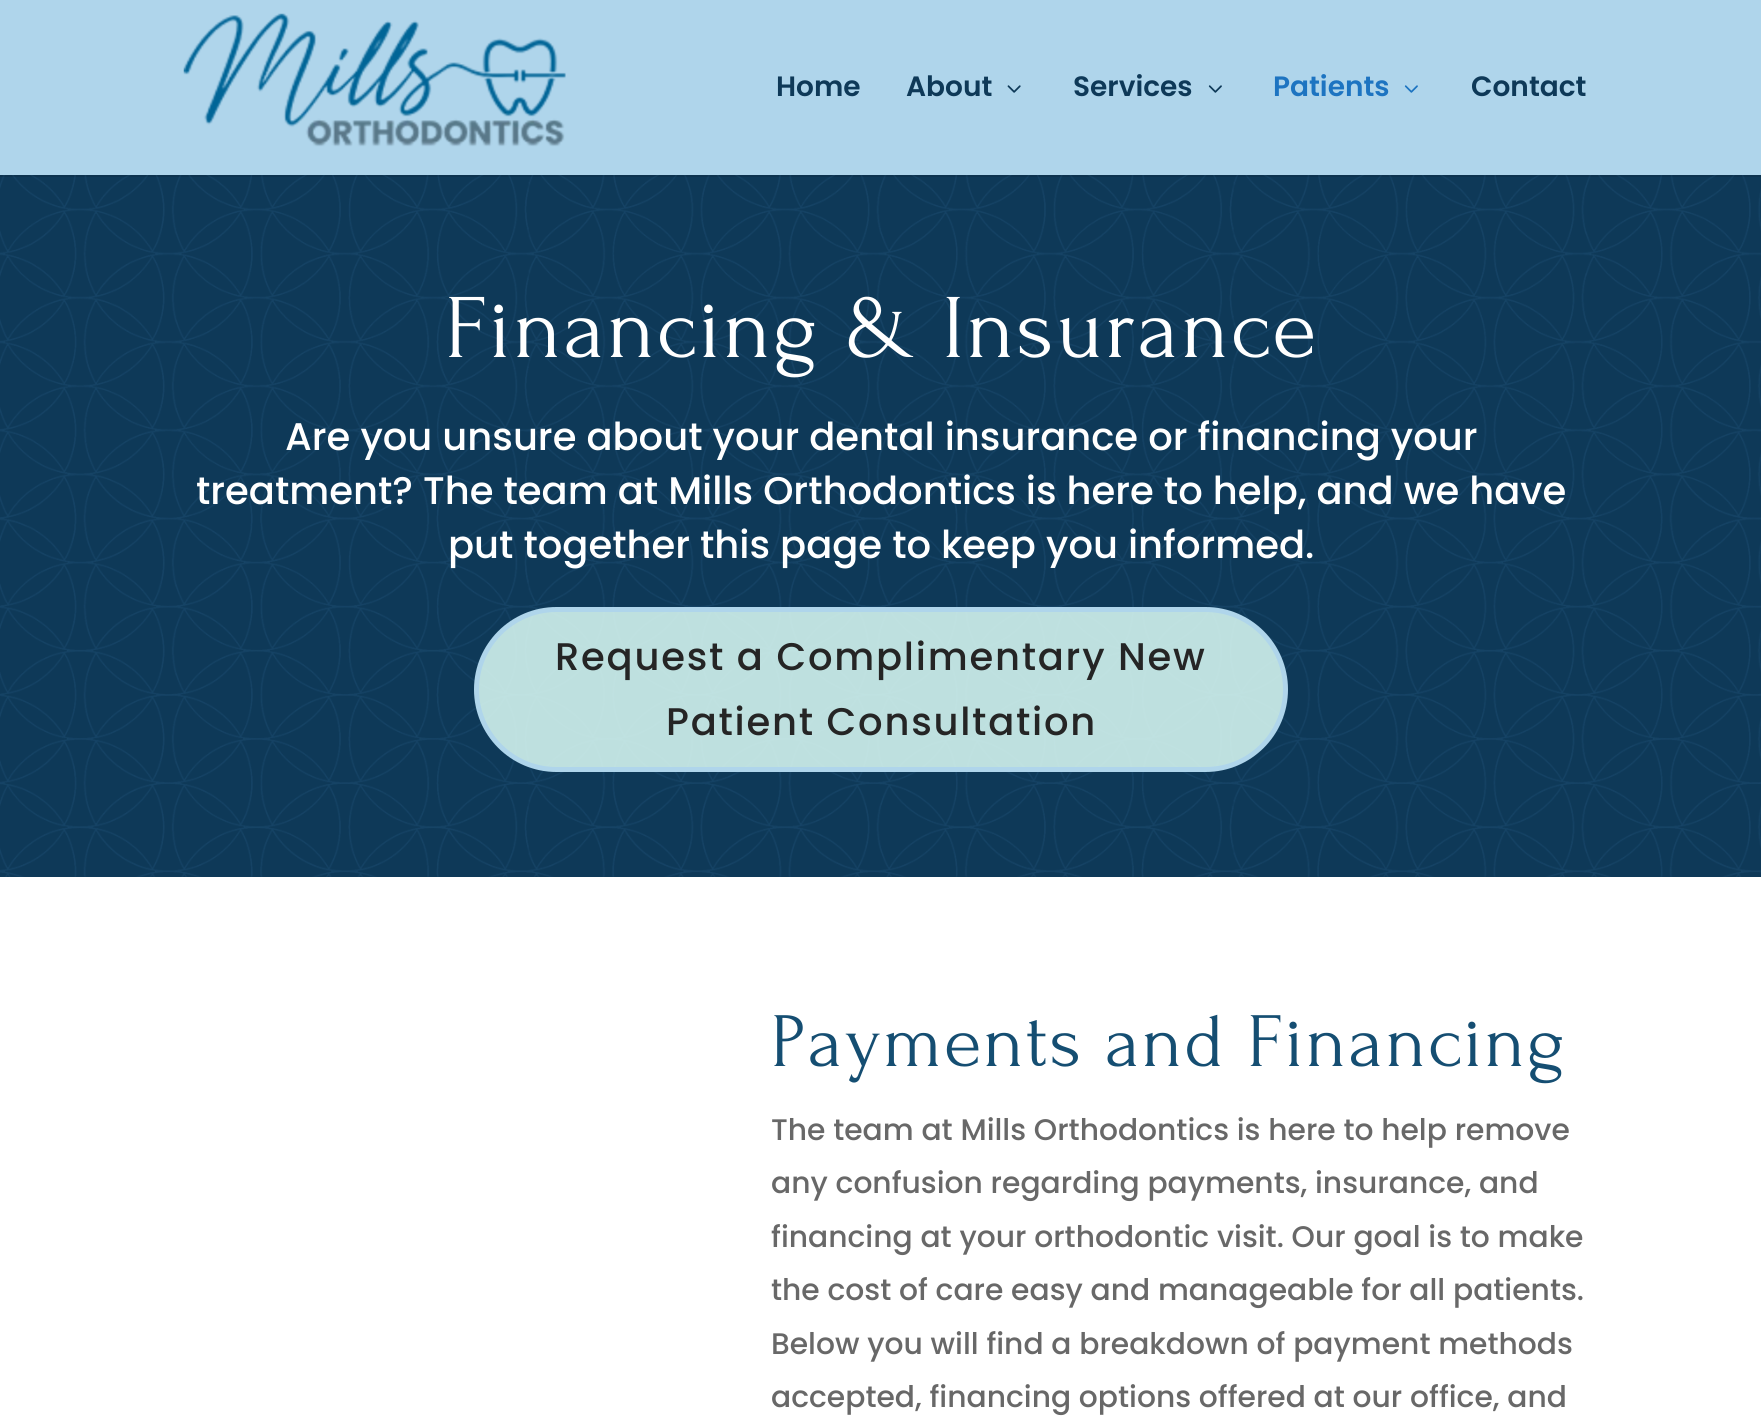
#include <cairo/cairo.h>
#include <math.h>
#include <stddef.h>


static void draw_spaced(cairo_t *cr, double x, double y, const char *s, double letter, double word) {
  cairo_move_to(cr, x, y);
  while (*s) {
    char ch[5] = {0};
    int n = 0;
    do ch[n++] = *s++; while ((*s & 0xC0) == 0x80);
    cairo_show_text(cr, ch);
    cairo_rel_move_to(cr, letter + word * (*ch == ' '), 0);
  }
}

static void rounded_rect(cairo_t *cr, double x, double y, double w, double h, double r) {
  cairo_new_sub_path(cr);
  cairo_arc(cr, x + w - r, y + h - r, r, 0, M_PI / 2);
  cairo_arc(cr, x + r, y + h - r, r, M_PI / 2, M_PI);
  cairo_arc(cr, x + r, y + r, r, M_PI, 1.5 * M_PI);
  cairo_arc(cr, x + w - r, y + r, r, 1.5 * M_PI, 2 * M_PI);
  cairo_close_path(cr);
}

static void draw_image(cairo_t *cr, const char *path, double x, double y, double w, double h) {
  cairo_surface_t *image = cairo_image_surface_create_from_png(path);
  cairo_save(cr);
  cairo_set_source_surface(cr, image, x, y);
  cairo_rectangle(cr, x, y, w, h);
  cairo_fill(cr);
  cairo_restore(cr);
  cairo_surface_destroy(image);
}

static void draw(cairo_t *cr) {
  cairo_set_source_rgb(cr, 14 / 255.0, 57 / 255.0, 88 / 255.0);
  cairo_paint(cr);
  draw_image(cr, "images/5.png", 0, 175, 1761, 702);
  cairo_set_source_rgba(cr, 0, 0, 0, 0.1);
  cairo_rectangle(cr, 0, 175, 1761, 2);
  cairo_fill(cr);
  cairo_set_source_rgb(cr, 175 / 255.0, 213 / 255.0, 235 / 255.0);
  cairo_rectangle(cr, 0, 0, 1761, 175);
  cairo_fill(cr);
  draw_image(cr, "images/1.png", 183, 13, 383, 134);
  draw_image(cr, "images/2.png", 1007, 85, 14, 8);
  draw_image(cr, "images/3.png", 1208, 85, 14, 8);
  draw_image(cr, "images/4.png", 1404, 85, 14, 8);
  cairo_set_source_rgba(cr, 224 / 255.0, 1, 248 / 255.0, 0.84);
  rounded_rect(cr, 476.5, 609.5, 809, 160, 80);
  cairo_fill_preserve(cr);
  cairo_set_source_rgb(cr, 175 / 255.0, 213 / 255.0, 235 / 255.0);
  cairo_set_line_width(cr, 5);
  cairo_stroke(cr);
  cairo_set_source_rgb(cr, 1, 1, 1);
  cairo_rectangle(cr, 0, 877, 1761, 549);
  cairo_fill(cr);
  cairo_select_font_face(cr, "Poppins SemiBold", CAIRO_FONT_SLANT_NORMAL, CAIRO_FONT_WEIGHT_NORMAL);
  cairo_set_font_size(cr, 28);
  cairo_set_source_rgb(cr, 14 / 255.0, 57 / 255.0, 88 / 255.0);
  cairo_move_to(cr, 776, 96);
  cairo_show_text(cr, "Home");
  cairo_move_to(cr, 906, 96);
  cairo_show_text(cr, "About");
  cairo_move_to(cr, 1073, 96);
  cairo_show_text(cr, "Services");
  cairo_set_source_rgb(cr, 29 / 255.0, 116 / 255.0, 193 / 255.0);
  cairo_move_to(cr, 1273, 96);
  cairo_show_text(cr, "Patients");
  cairo_set_source_rgb(cr, 14 / 255.0, 57 / 255.0, 88 / 255.0);
  cairo_move_to(cr, 1471, 96);
  cairo_show_text(cr, "Contact");
  cairo_select_font_face(cr, "Forum", CAIRO_FONT_SLANT_NORMAL, CAIRO_FONT_WEIGHT_NORMAL);
  cairo_set_font_size(cr, 91);
  cairo_set_source_rgb(cr, 1, 1, 1);
  draw_spaced(cr, 445, 357, "Financing & Insurance", 1.75, 0);
  cairo_select_font_face(cr, "Poppins Medium", CAIRO_FONT_SLANT_NORMAL, CAIRO_FONT_WEIGHT_NORMAL);
  cairo_set_font_size(cr, 38.5);
  cairo_move_to(cr, 285, 450);
  cairo_show_text(cr, "Are you unsure about your dental insurance or financing your");
  cairo_move_to(cr, 196, 504);
  cairo_show_text(cr, "treatment? The team at Mills Orthodontics is here to help, and we have");
  cairo_move_to(cr, 448, 558);
  cairo_show_text(cr, "put together this page to keep you informed.");
  cairo_set_source_rgb(cr, 37 / 255.0, 37 / 255.0, 37 / 255.0);
  draw_spaced(cr, 555, 670, "Request a Complimentary New", 1.75, 0);
  draw_spaced(cr, 666, 735, "Patient Consultation", 1.75, 0);
  cairo_select_font_face(cr, "Forum", CAIRO_FONT_SLANT_NORMAL, CAIRO_FONT_WEIGHT_NORMAL);
  cairo_set_font_size(cr, 77);
  cairo_set_source_rgb(cr, 21 / 255.0, 78 / 255.0, 114 / 255.0);
  draw_spaced(cr, 771, 1066, "Payments and Financing", 1.75, 0);
  cairo_select_font_face(cr, "Poppins Medium", CAIRO_FONT_SLANT_NORMAL, CAIRO_FONT_WEIGHT_NORMAL);
  cairo_set_font_size(cr, 29.75);
  cairo_set_source_rgb(cr, 104 / 255.0, 104 / 255.0, 104 / 255.0);
  cairo_move_to(cr, 771, 1140);
  cairo_show_text(cr, "The team at Mills Orthodontics is here to help remove");
  cairo_move_to(cr, 771, 1193);
  cairo_show_text(cr, "any confusion regarding payments, insurance, and");
  cairo_move_to(cr, 771, 1247);
  cairo_show_text(cr, "financing at your orthodontic visit. Our goal is to make");
  cairo_move_to(cr, 771, 1300);
  cairo_show_text(cr, "the cost of care easy and manageable for all patients.");
  cairo_move_to(cr, 771, 1354);
  cairo_show_text(cr, "Below you will find a breakdown of payment methods");
  cairo_move_to(cr, 771, 1407);
  cairo_show_text(cr, "accepted, financing options offered at our office, and");
}

int main(void) {
  cairo_surface_t *surface = cairo_image_surface_create(CAIRO_FORMAT_RGB24, 1761, 1426);
  cairo_t *cr = cairo_create(surface);
  cairo_font_options_t *options = cairo_font_options_create();
  cairo_font_options_set_hint_metrics(options, CAIRO_HINT_METRICS_OFF);
  cairo_font_options_set_hint_style(options, CAIRO_HINT_STYLE_NONE);
  cairo_set_font_options(cr, options);
  cairo_set_miter_limit(cr, 4);
  draw(cr);
  cairo_surface_write_to_png(surface, "out.png");
  cairo_font_options_destroy(options);
  cairo_destroy(cr);
  cairo_surface_destroy(surface);
  return 0;
}
